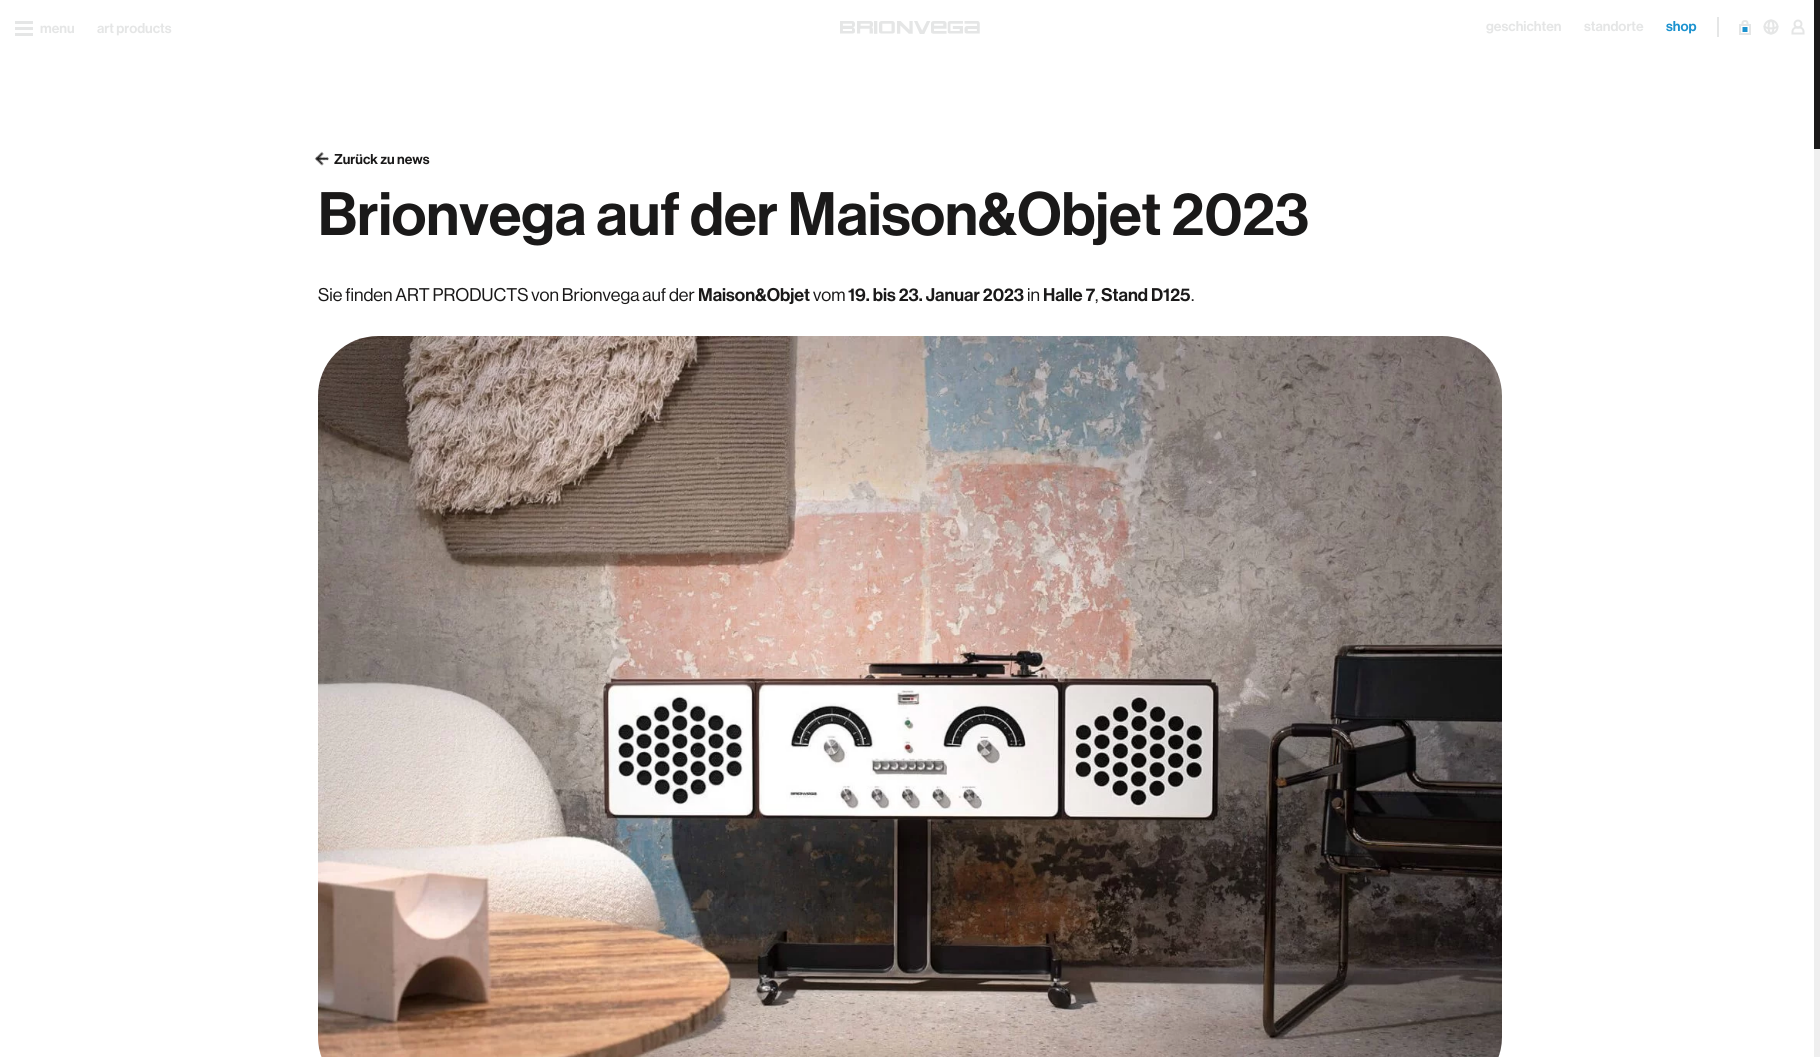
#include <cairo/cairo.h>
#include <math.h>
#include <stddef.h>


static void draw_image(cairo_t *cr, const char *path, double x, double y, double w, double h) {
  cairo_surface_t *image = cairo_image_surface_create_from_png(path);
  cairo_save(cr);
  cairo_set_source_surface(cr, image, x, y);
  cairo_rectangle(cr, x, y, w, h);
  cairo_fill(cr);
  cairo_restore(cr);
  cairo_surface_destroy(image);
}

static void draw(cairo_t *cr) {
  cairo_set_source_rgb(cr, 1, 1, 1);
  cairo_paint(cr);
  cairo_set_source_rgb(cr, 229 / 255.0, 230 / 255.0, 230 / 255.0);
  cairo_rectangle(cr, 15, 27, 18, 3);
  cairo_fill(cr);
  cairo_rectangle(cr, 15, 21, 18, 3);
  cairo_fill(cr);
  cairo_rectangle(cr, 15, 33, 18, 3);
  cairo_fill(cr);
  draw_image(cr, "images/1.png", 840, 21, 140, 13);
  cairo_rectangle(cr, 1717, 17, 2, 20);
  cairo_fill(cr);
  draw_image(cr, "images/2.png", 1739, 20, 12, 15);
  cairo_arc(cr, 1771, 27, 6.5, 0, 2 * M_PI);
  cairo_stroke(cr);
  cairo_new_path(cr);
  cairo_move_to(cr, 1764.5, 26.5);
  cairo_curve_to(cr, 1767, 29, 1775, 29, 1777.5, 26.5);
  cairo_set_line_cap(cr, CAIRO_LINE_CAP_ROUND);
  cairo_stroke(cr);
  cairo_new_path(cr);
  cairo_move_to(cr, 1771, 20.5);
  cairo_curve_to(cr, 1772.5, 20.5, 1773.5, 23.5, 1773.5, 27);
  cairo_curve_to(cr, 1773.5, 30.5, 1772.5, 33.5, 1771, 33.5);
  cairo_curve_to(cr, 1769.5, 33.5, 1768.5, 30.5, 1768.5, 27);
  cairo_curve_to(cr, 1768.5, 23.5, 1769.5, 20.5, 1771, 20.5);
  cairo_close_path(cr);
  cairo_set_line_cap(cr, CAIRO_LINE_CAP_BUTT);
  cairo_stroke(cr);
  draw_image(cr, "images/3.png", 1791, 19, 14, 16);
  cairo_set_source_rgb(cr, 239 / 255.0, 239 / 255.0, 239 / 255.0);
  cairo_rectangle(cr, 1814, 149, 6, 908);
  cairo_fill(cr);
  cairo_set_source_rgb(cr, 26 / 255.0, 25 / 255.0, 25 / 255.0);
  cairo_rectangle(cr, 1814, 0, 6, 149);
  cairo_fill(cr);
  draw_image(cr, "images/4.png", 314, 151, 15, 15);
  draw_image(cr, "images/5.png", 318, 336, 1184, 721);
  cairo_select_font_face(cr, "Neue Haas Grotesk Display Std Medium", CAIRO_FONT_SLANT_NORMAL, CAIRO_FONT_WEIGHT_NORMAL);
  cairo_set_font_size(cr, 14);
  cairo_set_source_rgb(cr, 229 / 255.0, 230 / 255.0, 230 / 255.0);
  cairo_move_to(cr, 40, 33);
  cairo_show_text(cr, "menu");
  cairo_move_to(cr, 97, 33);
  cairo_show_text(cr, "art products");
  cairo_move_to(cr, 1486, 31);
  cairo_show_text(cr, "geschichten");
  cairo_move_to(cr, 1584, 31);
  cairo_show_text(cr, "standorte");
  cairo_set_source_rgb(cr, 27 / 255.0, 146 / 255.0, 207 / 255.0);
  cairo_move_to(cr, 1666, 31);
  cairo_show_text(cr, "shop");
  cairo_set_source_rgb(cr, 26 / 255.0, 25 / 255.0, 25 / 255.0);
  cairo_move_to(cr, 334, 164);
  cairo_show_text(cr, "Zurück zu news");
  cairo_set_font_size(cr, 60);
  cairo_move_to(cr, 318, 235);
  cairo_show_text(cr, "Brionvega auf der Maison&Objet 2023");
  cairo_select_font_face(cr, "Neue Haas Grotesk Display Std", CAIRO_FONT_SLANT_NORMAL, CAIRO_FONT_WEIGHT_NORMAL);
  cairo_set_font_size(cr, 18);
  cairo_move_to(cr, 318, 301);
  cairo_show_text(cr, "Sie finden ART PRODUCTS von Brionvega auf der");
  cairo_select_font_face(cr, "Neue Haas Grotesk Display Std Medium", CAIRO_FONT_SLANT_NORMAL, CAIRO_FONT_WEIGHT_NORMAL);
  cairo_move_to(cr, 698, 301);
  cairo_show_text(cr, "Maison&Objet");
  cairo_select_font_face(cr, "Neue Haas Grotesk Display Std", CAIRO_FONT_SLANT_NORMAL, CAIRO_FONT_WEIGHT_NORMAL);
  cairo_move_to(cr, 813, 301);
  cairo_show_text(cr, "vom");
  cairo_select_font_face(cr, "Neue Haas Grotesk Display Std Medium", CAIRO_FONT_SLANT_NORMAL, CAIRO_FONT_WEIGHT_NORMAL);
  cairo_move_to(cr, 848, 301);
  cairo_show_text(cr, "19. bis 23. Januar 2023");
  cairo_select_font_face(cr, "Neue Haas Grotesk Display Std", CAIRO_FONT_SLANT_NORMAL, CAIRO_FONT_WEIGHT_NORMAL);
  cairo_move_to(cr, 1027, 301);
  cairo_show_text(cr, "in");
  cairo_select_font_face(cr, "Neue Haas Grotesk Display Std Medium", CAIRO_FONT_SLANT_NORMAL, CAIRO_FONT_WEIGHT_NORMAL);
  cairo_move_to(cr, 1043, 301);
  cairo_show_text(cr, "Halle 7");
  cairo_select_font_face(cr, "Neue Haas Grotesk Display Std", CAIRO_FONT_SLANT_NORMAL, CAIRO_FONT_WEIGHT_NORMAL);
  cairo_move_to(cr, 1095, 301);
  cairo_show_text(cr, ",");
  cairo_select_font_face(cr, "Neue Haas Grotesk Display Std Medium", CAIRO_FONT_SLANT_NORMAL, CAIRO_FONT_WEIGHT_NORMAL);
  cairo_move_to(cr, 1101, 301);
  cairo_show_text(cr, "Stand D125");
  cairo_select_font_face(cr, "Neue Haas Grotesk Display Std", CAIRO_FONT_SLANT_NORMAL, CAIRO_FONT_WEIGHT_NORMAL);
  cairo_move_to(cr, 1191, 301);
  cairo_show_text(cr, ".");
}

int main(void) {
  cairo_surface_t *surface = cairo_image_surface_create(CAIRO_FORMAT_RGB24, 1820, 1057);
  cairo_t *cr = cairo_create(surface);
  cairo_font_options_t *options = cairo_font_options_create();
  cairo_font_options_set_hint_metrics(options, CAIRO_HINT_METRICS_OFF);
  cairo_font_options_set_hint_style(options, CAIRO_HINT_STYLE_NONE);
  cairo_set_font_options(cr, options);
  cairo_set_miter_limit(cr, 4);
  draw(cr);
  cairo_surface_write_to_png(surface, "out.png");
  cairo_font_options_destroy(options);
  cairo_destroy(cr);
  cairo_surface_destroy(surface);
  return 0;
}
